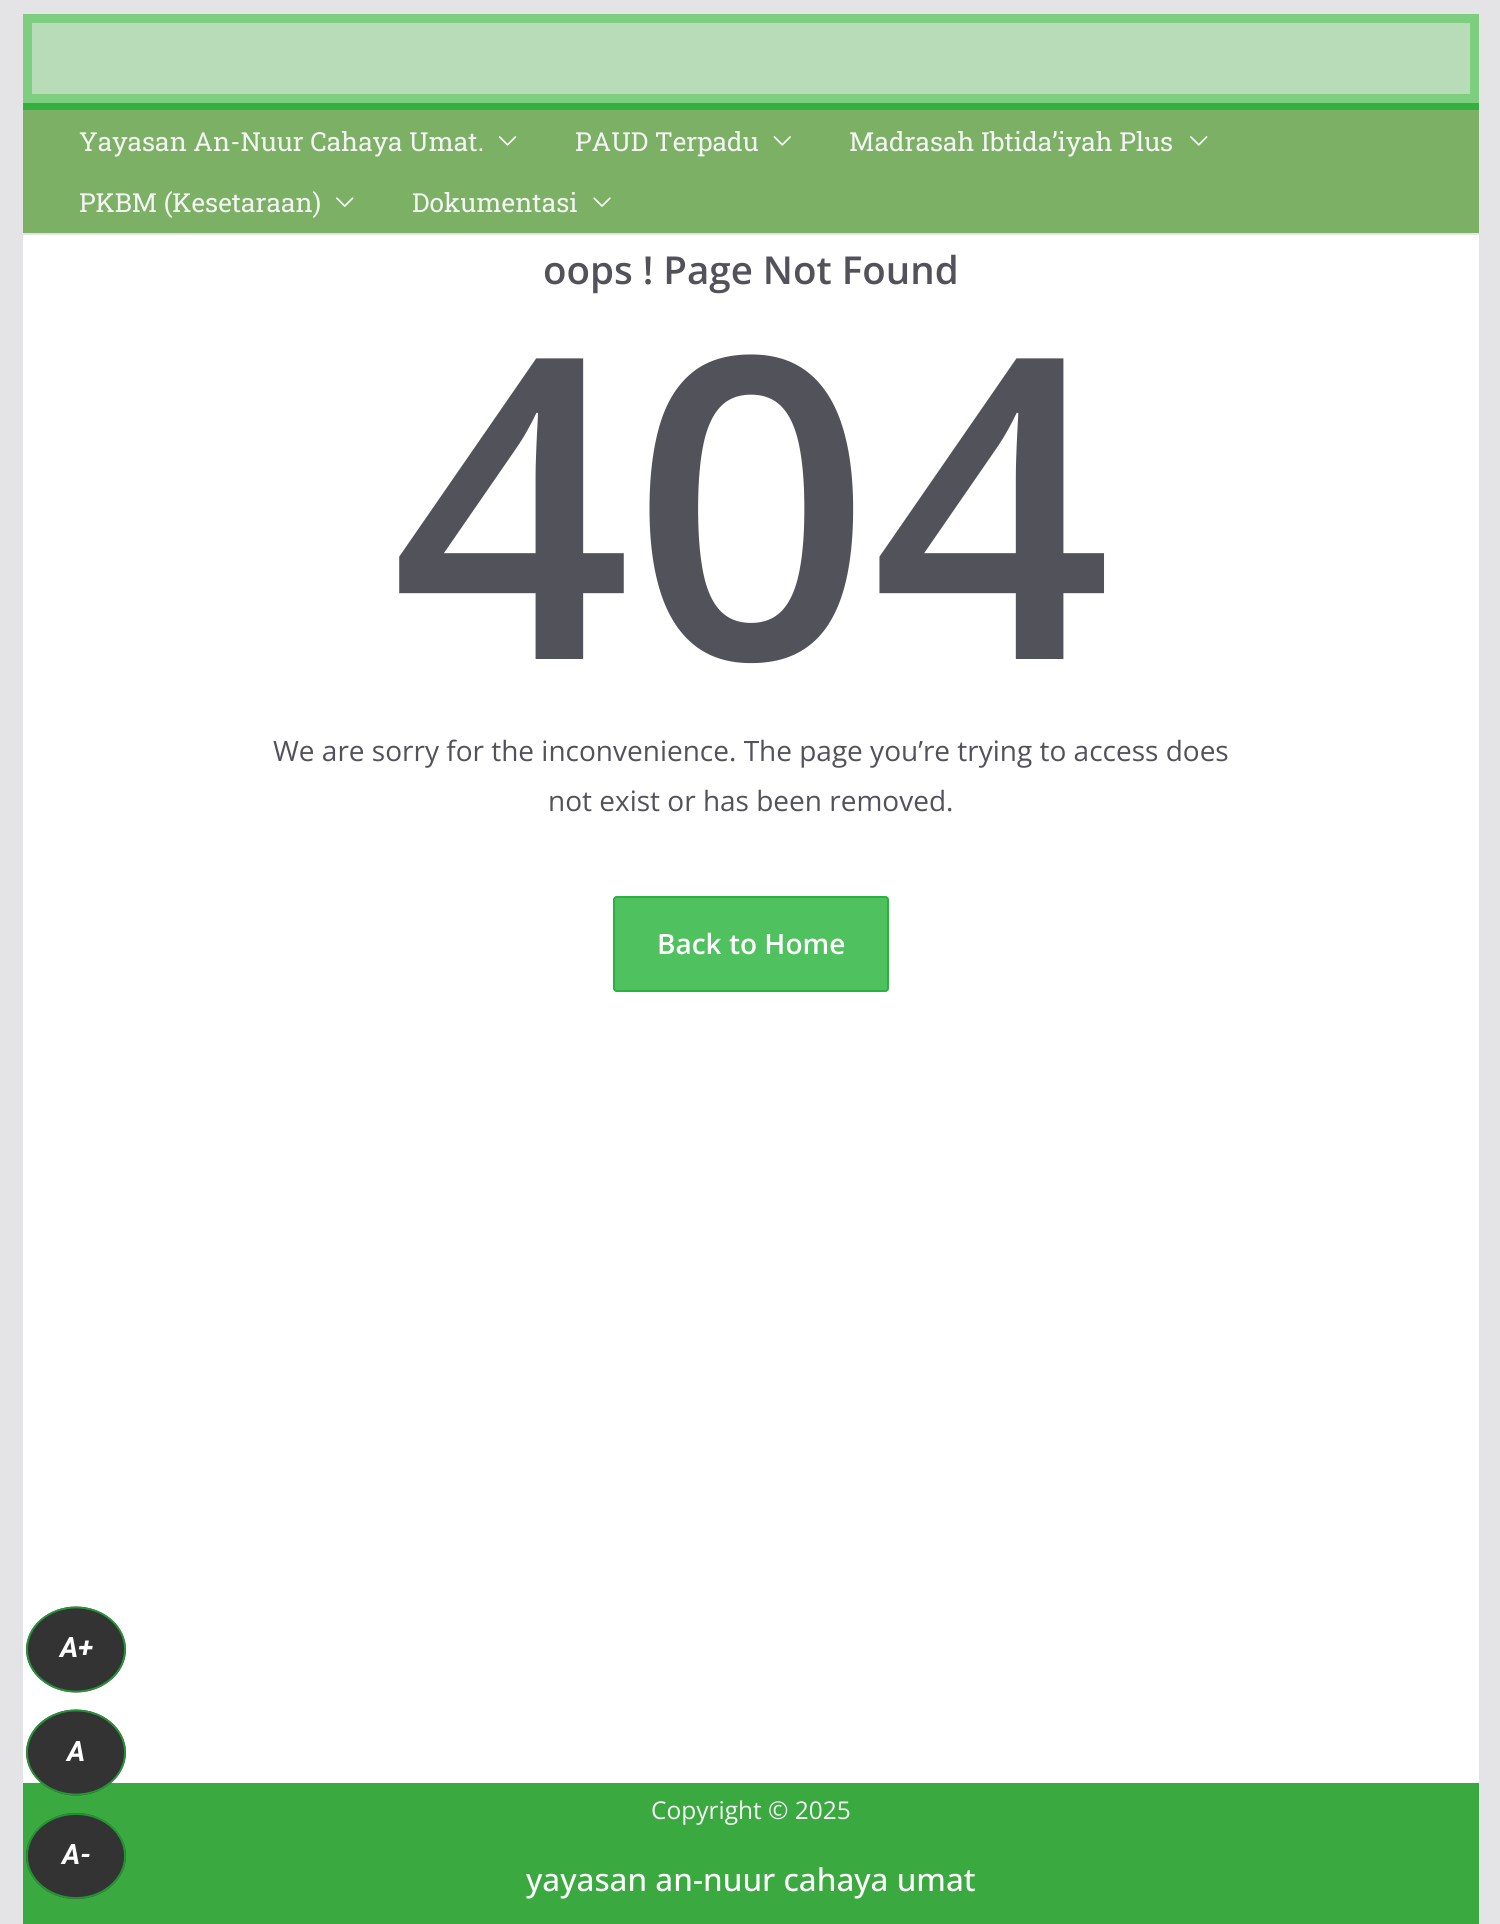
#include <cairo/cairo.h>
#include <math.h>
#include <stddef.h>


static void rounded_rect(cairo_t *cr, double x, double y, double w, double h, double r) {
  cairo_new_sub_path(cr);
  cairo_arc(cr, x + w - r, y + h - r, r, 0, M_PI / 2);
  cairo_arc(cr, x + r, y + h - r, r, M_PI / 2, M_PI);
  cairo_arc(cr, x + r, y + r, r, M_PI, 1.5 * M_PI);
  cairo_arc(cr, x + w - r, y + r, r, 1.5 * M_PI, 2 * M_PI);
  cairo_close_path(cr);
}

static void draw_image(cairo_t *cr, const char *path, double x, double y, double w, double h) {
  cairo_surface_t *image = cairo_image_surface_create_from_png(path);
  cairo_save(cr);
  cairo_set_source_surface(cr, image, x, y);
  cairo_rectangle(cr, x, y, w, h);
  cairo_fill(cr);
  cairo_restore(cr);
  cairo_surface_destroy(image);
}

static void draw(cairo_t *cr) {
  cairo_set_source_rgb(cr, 228 / 255.0, 228 / 255.0, 231 / 255.0);
  cairo_paint(cr);
  cairo_set_source_rgb(cr, 1, 1, 1);
  cairo_rectangle(cr, 23, 235, 1456, 1548);
  cairo_fill(cr);
  cairo_set_source_rgb(cr, 51 / 255.0, 51 / 255.0, 51 / 255.0);
  cairo_new_path(cr);
  cairo_move_to(cr, 76, 1606.5);
  cairo_curve_to(cr, 103.5, 1606.5, 126, 1626, 126, 1649.5);
  cairo_curve_to(cr, 126, 1673, 103.5, 1692.5, 76, 1692.5);
  cairo_curve_to(cr, 48.5, 1692.5, 26, 1673, 26, 1649.5);
  cairo_curve_to(cr, 26, 1626, 48.5, 1606.5, 76, 1606.5);
  cairo_close_path(cr);
  cairo_fill(cr);
  cairo_new_path(cr);
  cairo_move_to(cr, 76, 1607.5);
  cairo_curve_to(cr, 103, 1607.5, 125, 1626, 125, 1649.5);
  cairo_curve_to(cr, 125, 1672.5, 103, 1691.5, 76, 1691.5);
  cairo_curve_to(cr, 49, 1691.5, 27, 1672.5, 27, 1649.5);
  cairo_curve_to(cr, 27, 1626, 49, 1607.5, 76, 1607.5);
  cairo_close_path(cr);
  cairo_set_source_rgba(cr, 32 / 255.0, 176 / 255.0, 53 / 255.0, 0.79);
  cairo_set_line_width(cr, 1.8);
  cairo_stroke(cr);
  cairo_set_source_rgb(cr, 58 / 255.0, 169 / 255.0, 63 / 255.0);
  cairo_rectangle(cr, 23, 1783, 1456, 141);
  cairo_fill(cr);
  cairo_set_source_rgb(cr, 51 / 255.0, 51 / 255.0, 51 / 255.0);
  cairo_new_path(cr);
  cairo_move_to(cr, 76, 1709.5);
  cairo_curve_to(cr, 103.5, 1709.5, 126, 1729, 126, 1752.5);
  cairo_curve_to(cr, 126, 1776, 103.5, 1795.5, 76, 1795.5);
  cairo_curve_to(cr, 48.5, 1795.5, 26, 1776, 26, 1752.5);
  cairo_curve_to(cr, 26, 1729, 48.5, 1709.5, 76, 1709.5);
  cairo_close_path(cr);
  cairo_fill(cr);
  cairo_new_path(cr);
  cairo_move_to(cr, 76, 1710.5);
  cairo_curve_to(cr, 103, 1710.5, 125, 1729.5, 125, 1752.5);
  cairo_curve_to(cr, 125, 1776, 103, 1794.5, 76, 1794.5);
  cairo_curve_to(cr, 49, 1794.5, 27, 1776, 27, 1752.5);
  cairo_curve_to(cr, 27, 1729.5, 49, 1710.5, 76, 1710.5);
  cairo_close_path(cr);
  cairo_set_source_rgba(cr, 32 / 255.0, 176 / 255.0, 53 / 255.0, 0.79);
  cairo_stroke(cr);
  cairo_set_source_rgb(cr, 51 / 255.0, 51 / 255.0, 51 / 255.0);
  cairo_new_path(cr);
  cairo_move_to(cr, 76, 1813);
  cairo_curve_to(cr, 103.5, 1813, 126, 1832.5, 126, 1856);
  cairo_curve_to(cr, 126, 1879.5, 103.5, 1899, 76, 1899);
  cairo_curve_to(cr, 48.5, 1899, 26, 1879.5, 26, 1856);
  cairo_curve_to(cr, 26, 1832.5, 48.5, 1813, 76, 1813);
  cairo_close_path(cr);
  cairo_fill(cr);
  cairo_new_path(cr);
  cairo_move_to(cr, 76, 1814);
  cairo_curve_to(cr, 103, 1814, 125, 1832.5, 125, 1856);
  cairo_curve_to(cr, 125, 1879, 103, 1898, 76, 1898);
  cairo_curve_to(cr, 49, 1898, 27, 1879, 27, 1856);
  cairo_curve_to(cr, 27, 1832.5, 49, 1814, 76, 1814);
  cairo_close_path(cr);
  cairo_set_source_rgba(cr, 32 / 255.0, 176 / 255.0, 53 / 255.0, 0.79);
  cairo_stroke(cr);
  cairo_set_source_rgb(cr, 184 / 255.0, 220 / 255.0, 183 / 255.0);
  cairo_rectangle(cr, 27.5, 18.5, 1447, 80);
  cairo_fill_preserve(cr);
  cairo_set_source_rgb(cr, 125 / 255.0, 206 / 255.0, 127 / 255.0);
  cairo_set_line_width(cr, 9);
  cairo_stroke(cr);
  cairo_set_source_rgb(cr, 123 / 255.0, 176 / 255.0, 101 / 255.0);
  cairo_rectangle(cr, 23, 110, 1456, 123);
  cairo_fill(cr);
  cairo_set_source_rgb(cr, 51 / 255.0, 176 / 255.0, 63 / 255.0);
  cairo_rectangle(cr, 23, 103, 1456, 7);
  cairo_fill(cr);
  draw_image(cr, "images/1.png", 498, 136, 19, 10);
  draw_image(cr, "images/2.png", 773, 136, 18, 10);
  draw_image(cr, "images/3.png", 1190, 136, 18, 10);
  draw_image(cr, "images/4.png", 336, 197, 18, 10);
  draw_image(cr, "images/5.png", 593, 197, 18, 10);
  cairo_set_source_rgb(cr, 79 / 255.0, 193 / 255.0, 95 / 255.0);
  rounded_rect(cr, 613, 896, 276, 96, 4);
  cairo_fill(cr);
  rounded_rect(cr, 614, 897, 274, 94, 3);
  cairo_set_source_rgba(cr, 32 / 255.0, 176 / 255.0, 53 / 255.0, 0.79);
  cairo_set_line_width(cr, 2);
  cairo_stroke(cr);
  cairo_select_font_face(cr, "Roboto", CAIRO_FONT_SLANT_ITALIC, CAIRO_FONT_WEIGHT_BOLD);
  cairo_set_font_size(cr, 28);
  cairo_set_source_rgb(cr, 1, 1, 1);
  cairo_move_to(cr, 60, 1657);
  cairo_show_text(cr, "A+");
  cairo_move_to(cr, 67, 1761);
  cairo_show_text(cr, "A");
  cairo_move_to(cr, 62, 1864);
  cairo_show_text(cr, "A-");
  cairo_select_font_face(cr, "Roboto Slab", CAIRO_FONT_SLANT_NORMAL, CAIRO_FONT_WEIGHT_NORMAL);
  cairo_set_font_size(cr, 26.25);
  cairo_set_source_rgb(cr, 244 / 255.0, 244 / 255.0, 245 / 255.0);
  cairo_move_to(cr, 79, 151);
  cairo_show_text(cr, "Yayasan An-Nuur Cahaya Umat.");
  cairo_move_to(cr, 575, 151);
  cairo_show_text(cr, "PAUD Terpadu");
  cairo_move_to(cr, 849, 151);
  cairo_show_text(cr, "Madrasah Ibtida’iyah Plus");
  cairo_move_to(cr, 79, 212);
  cairo_show_text(cr, "PKBM (Kesetaraan)");
  cairo_move_to(cr, 412, 212);
  cairo_show_text(cr, "Dokumentasi");
  cairo_select_font_face(cr, "Open Sans SemiBold", CAIRO_FONT_SLANT_NORMAL, CAIRO_FONT_WEIGHT_NORMAL);
  cairo_set_font_size(cr, 38.5);
  cairo_set_source_rgb(cr, 82 / 255.0, 82 / 255.0, 91 / 255.0);
  cairo_move_to(cr, 543, 284);
  cairo_show_text(cr, "oops ! Page Not Found");
  cairo_set_font_size(cr, 420);
  cairo_move_to(cr, 391, 659);
  cairo_show_text(cr, "404");
  cairo_select_font_face(cr, "Open Sans", CAIRO_FONT_SLANT_NORMAL, CAIRO_FONT_WEIGHT_NORMAL);
  cairo_set_font_size(cr, 28);
  cairo_move_to(cr, 273, 761);
  cairo_show_text(cr, "We are sorry for the inconvenience. The page you’re trying to access does");
  cairo_move_to(cr, 548, 811);
  cairo_show_text(cr, "not exist or has been removed.");
  cairo_select_font_face(cr, "Open Sans SemiBold", CAIRO_FONT_SLANT_NORMAL, CAIRO_FONT_WEIGHT_NORMAL);
  cairo_set_source_rgb(cr, 1, 1, 1);
  cairo_move_to(cr, 657, 954);
  cairo_show_text(cr, "Back to Home");
  cairo_select_font_face(cr, "Open Sans", CAIRO_FONT_SLANT_NORMAL, CAIRO_FONT_WEIGHT_NORMAL);
  cairo_set_font_size(cr, 24.5);
  cairo_set_source_rgb(cr, 244 / 255.0, 244 / 255.0, 245 / 255.0);
  cairo_move_to(cr, 651, 1819);
  cairo_show_text(cr, "Copyright © 2025");
  cairo_select_font_face(cr, "Open Sans Medium", CAIRO_FONT_SLANT_NORMAL, CAIRO_FONT_WEIGHT_NORMAL);
  cairo_set_font_size(cr, 31.5);
  cairo_set_source_rgb(cr, 1, 1, 1);
  cairo_move_to(cr, 526, 1891);
  cairo_show_text(cr, "yayasan an-nuur cahaya umat");
}

int main(void) {
  cairo_surface_t *surface = cairo_image_surface_create(CAIRO_FORMAT_RGB24, 1500, 1924);
  cairo_t *cr = cairo_create(surface);
  cairo_font_options_t *options = cairo_font_options_create();
  cairo_font_options_set_hint_metrics(options, CAIRO_HINT_METRICS_OFF);
  cairo_font_options_set_hint_style(options, CAIRO_HINT_STYLE_NONE);
  cairo_set_font_options(cr, options);
  cairo_set_miter_limit(cr, 4);
  draw(cr);
  cairo_surface_write_to_png(surface, "out.png");
  cairo_font_options_destroy(options);
  cairo_destroy(cr);
  cairo_surface_destroy(surface);
  return 0;
}
